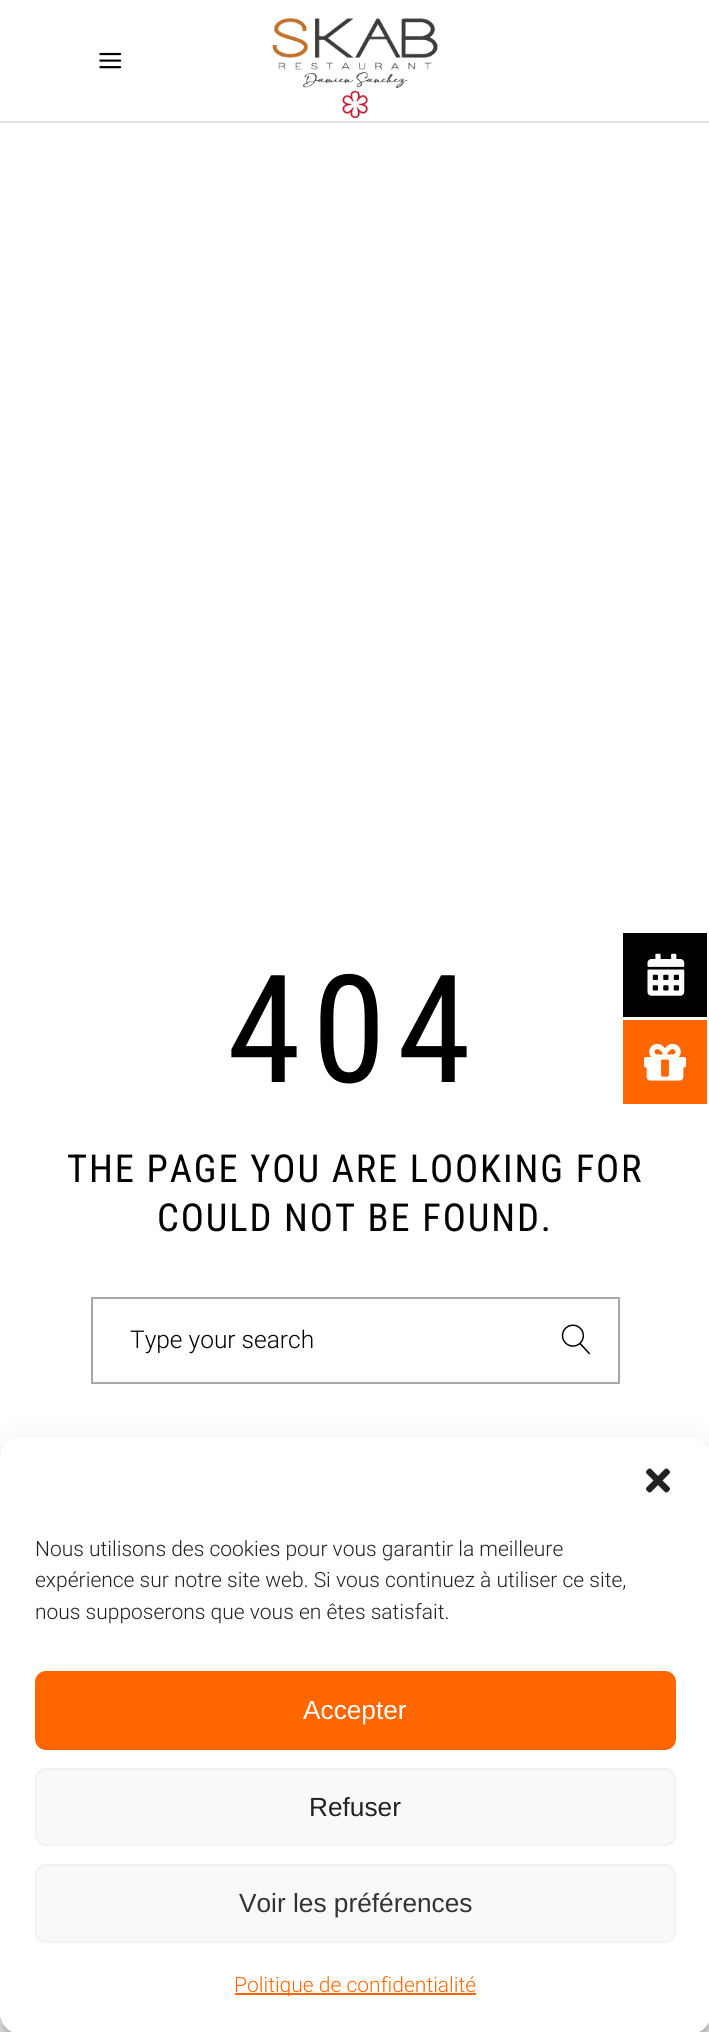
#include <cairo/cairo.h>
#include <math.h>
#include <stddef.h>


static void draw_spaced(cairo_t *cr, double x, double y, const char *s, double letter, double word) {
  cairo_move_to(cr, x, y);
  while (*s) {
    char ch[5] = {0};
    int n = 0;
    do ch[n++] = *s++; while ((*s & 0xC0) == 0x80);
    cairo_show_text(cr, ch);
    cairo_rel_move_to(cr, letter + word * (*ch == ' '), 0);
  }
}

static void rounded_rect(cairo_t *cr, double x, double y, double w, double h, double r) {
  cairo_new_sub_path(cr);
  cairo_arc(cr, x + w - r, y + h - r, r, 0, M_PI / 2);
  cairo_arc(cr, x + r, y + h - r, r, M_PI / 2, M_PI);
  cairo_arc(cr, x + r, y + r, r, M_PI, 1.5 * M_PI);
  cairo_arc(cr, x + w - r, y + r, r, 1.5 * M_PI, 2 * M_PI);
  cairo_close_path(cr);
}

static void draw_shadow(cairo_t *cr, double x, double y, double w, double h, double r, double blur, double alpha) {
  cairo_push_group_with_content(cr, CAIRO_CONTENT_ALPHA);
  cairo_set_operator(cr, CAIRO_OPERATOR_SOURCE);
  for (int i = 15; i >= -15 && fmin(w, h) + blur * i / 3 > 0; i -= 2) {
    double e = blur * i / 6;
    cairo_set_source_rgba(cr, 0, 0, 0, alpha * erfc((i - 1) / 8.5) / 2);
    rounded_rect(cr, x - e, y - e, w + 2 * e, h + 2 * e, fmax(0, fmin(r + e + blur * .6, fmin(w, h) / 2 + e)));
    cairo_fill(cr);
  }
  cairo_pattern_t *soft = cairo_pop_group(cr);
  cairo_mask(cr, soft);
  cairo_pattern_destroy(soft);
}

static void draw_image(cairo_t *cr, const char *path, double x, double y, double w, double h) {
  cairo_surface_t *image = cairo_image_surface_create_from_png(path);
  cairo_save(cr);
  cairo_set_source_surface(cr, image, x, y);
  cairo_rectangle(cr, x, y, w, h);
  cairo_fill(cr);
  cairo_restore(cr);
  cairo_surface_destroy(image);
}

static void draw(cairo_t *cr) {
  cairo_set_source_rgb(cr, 1, 1, 1);
  cairo_paint(cr);
  cairo_set_source_rgb(cr, 225 / 255.0, 225 / 255.0, 225 / 255.0);
  cairo_rectangle(cr, 0, 121, 709, 2);
  cairo_fill(cr);
  draw_image(cr, "images/1.png", 99, 52, 23, 17);
  draw_image(cr, "images/2.png", 272, 18, 166, 100);
  cairo_rectangle(cr, 92, 1298, 527, 85);
  cairo_set_source_rgb(cr, 167 / 255.0, 167 / 255.0, 167 / 255.0);
  cairo_stroke(cr);
  draw_image(cr, "images/3.png", 561, 1324, 29, 31);
  cairo_set_source_rgb(cr, 0, 0, 0);
  cairo_rectangle(cr, 623, 933, 84, 84);
  cairo_fill(cr);
  draw_image(cr, "images/4.png", 647, 953, 38, 43);
  cairo_set_source_rgb(cr, 1, 102 / 255.0, 0);
  cairo_rectangle(cr, 623, 1020, 84, 84);
  cairo_fill(cr);
  draw_image(cr, "images/5.png", 644, 1043, 42, 38);
  cairo_set_source_rgb(cr, 0, 0, 0);
  draw_shadow(cr, 0, 1447, 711, 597, 21, 5, 0.23);
  draw_shadow(cr, 0, 1454, 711, 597, 21, 17.5, 0.19);
  cairo_set_source_rgb(cr, 1, 1, 1);
  rounded_rect(cr, 0, 1437, 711, 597, 21);
  cairo_fill(cr);
  draw_image(cr, "images/6.png", 646, 1468, 24, 25);
  cairo_set_source_rgb(cr, 1, 102 / 255.0, 0);
  rounded_rect(cr, 36, 1672, 639, 77, 10);
  cairo_fill_preserve(cr);
  cairo_stroke(cr);
  cairo_set_source_rgb(cr, 249 / 255.0, 249 / 255.0, 249 / 255.0);
  rounded_rect(cr, 36, 1769, 639, 76, 10);
  cairo_fill_preserve(cr);
  cairo_set_source_rgb(cr, 242 / 255.0, 242 / 255.0, 242 / 255.0);
  cairo_stroke(cr);
  cairo_set_source_rgb(cr, 249 / 255.0, 249 / 255.0, 249 / 255.0);
  rounded_rect(cr, 36, 1865, 639, 77, 10);
  cairo_fill_preserve(cr);
  cairo_set_source_rgb(cr, 242 / 255.0, 242 / 255.0, 242 / 255.0);
  cairo_stroke(cr);
  cairo_set_source_rgb(cr, 1, 102 / 255.0, 0);
  cairo_rectangle(cr, 235, 1993, 241, 2);
  cairo_fill(cr);
  cairo_select_font_face(cr, "Roboto Condensed", CAIRO_FONT_SLANT_NORMAL, CAIRO_FONT_WEIGHT_NORMAL);
  cairo_set_font_size(cr, 150);
  cairo_set_source_rgb(cr, 0, 0, 0);
  draw_spaced(cr, 227, 1082, "404", 11, 0);
  cairo_set_font_size(cr, 38.5);
  draw_spaced(cr, 67, 1182, "THE PAGE YOU ARE LOOKING FOR", 1.9, 0);
  draw_spaced(cr, 157, 1231, "COULD NOT BE FOUND.", 1.9, 0);
  cairo_select_font_face(cr, "Roboto Light", CAIRO_FONT_SLANT_NORMAL, CAIRO_FONT_WEIGHT_NORMAL);
  cairo_set_font_size(cr, 24.5);
  cairo_move_to(cr, 130, 1348);
  cairo_show_text(cr, "Type your search");
  cairo_set_font_size(cr, 21);
  cairo_set_source_rgb(cr, 34 / 255.0, 34 / 255.0, 34 / 255.0);
  cairo_move_to(cr, 35, 1556);
  cairo_show_text(cr, "Nous utilisons des cookies pour vous garantir la meilleure");
  cairo_move_to(cr, 35, 1587);
  cairo_show_text(cr, "expérience sur notre site web. Si vous continuez à utiliser ce site,");
  cairo_move_to(cr, 35, 1619);
  cairo_show_text(cr, "nous supposerons que vous en êtes satisfait.");
  cairo_select_font_face(cr, "Liberation Sans", CAIRO_FONT_SLANT_NORMAL, CAIRO_FONT_WEIGHT_NORMAL);
  cairo_set_font_size(cr, 26.25);
  cairo_set_source_rgb(cr, 1, 1, 1);
  cairo_move_to(cr, 303, 1719);
  cairo_show_text(cr, "Accepter");
  cairo_set_source_rgb(cr, 34 / 255.0, 34 / 255.0, 34 / 255.0);
  cairo_move_to(cr, 309, 1816);
  cairo_show_text(cr, "Refuser");
  cairo_set_source_rgb(cr, 51 / 255.0, 51 / 255.0, 51 / 255.0);
  cairo_move_to(cr, 239, 1912);
  cairo_show_text(cr, "Voir les préférences");
  cairo_select_font_face(cr, "Roboto Light", CAIRO_FONT_SLANT_NORMAL, CAIRO_FONT_WEIGHT_NORMAL);
  cairo_set_font_size(cr, 21);
  cairo_set_source_rgb(cr, 1, 102 / 255.0, 0);
  cairo_move_to(cr, 234, 1992);
  cairo_show_text(cr, "Politique de confidentialité");
}

int main(void) {
  cairo_surface_t *surface = cairo_image_surface_create(CAIRO_FORMAT_RGB24, 709, 2032);
  cairo_t *cr = cairo_create(surface);
  cairo_font_options_t *options = cairo_font_options_create();
  cairo_font_options_set_hint_metrics(options, CAIRO_HINT_METRICS_OFF);
  cairo_font_options_set_hint_style(options, CAIRO_HINT_STYLE_NONE);
  cairo_set_font_options(cr, options);
  cairo_set_miter_limit(cr, 4);
  draw(cr);
  cairo_surface_write_to_png(surface, "out.png");
  cairo_font_options_destroy(options);
  cairo_destroy(cr);
  cairo_surface_destroy(surface);
  return 0;
}
